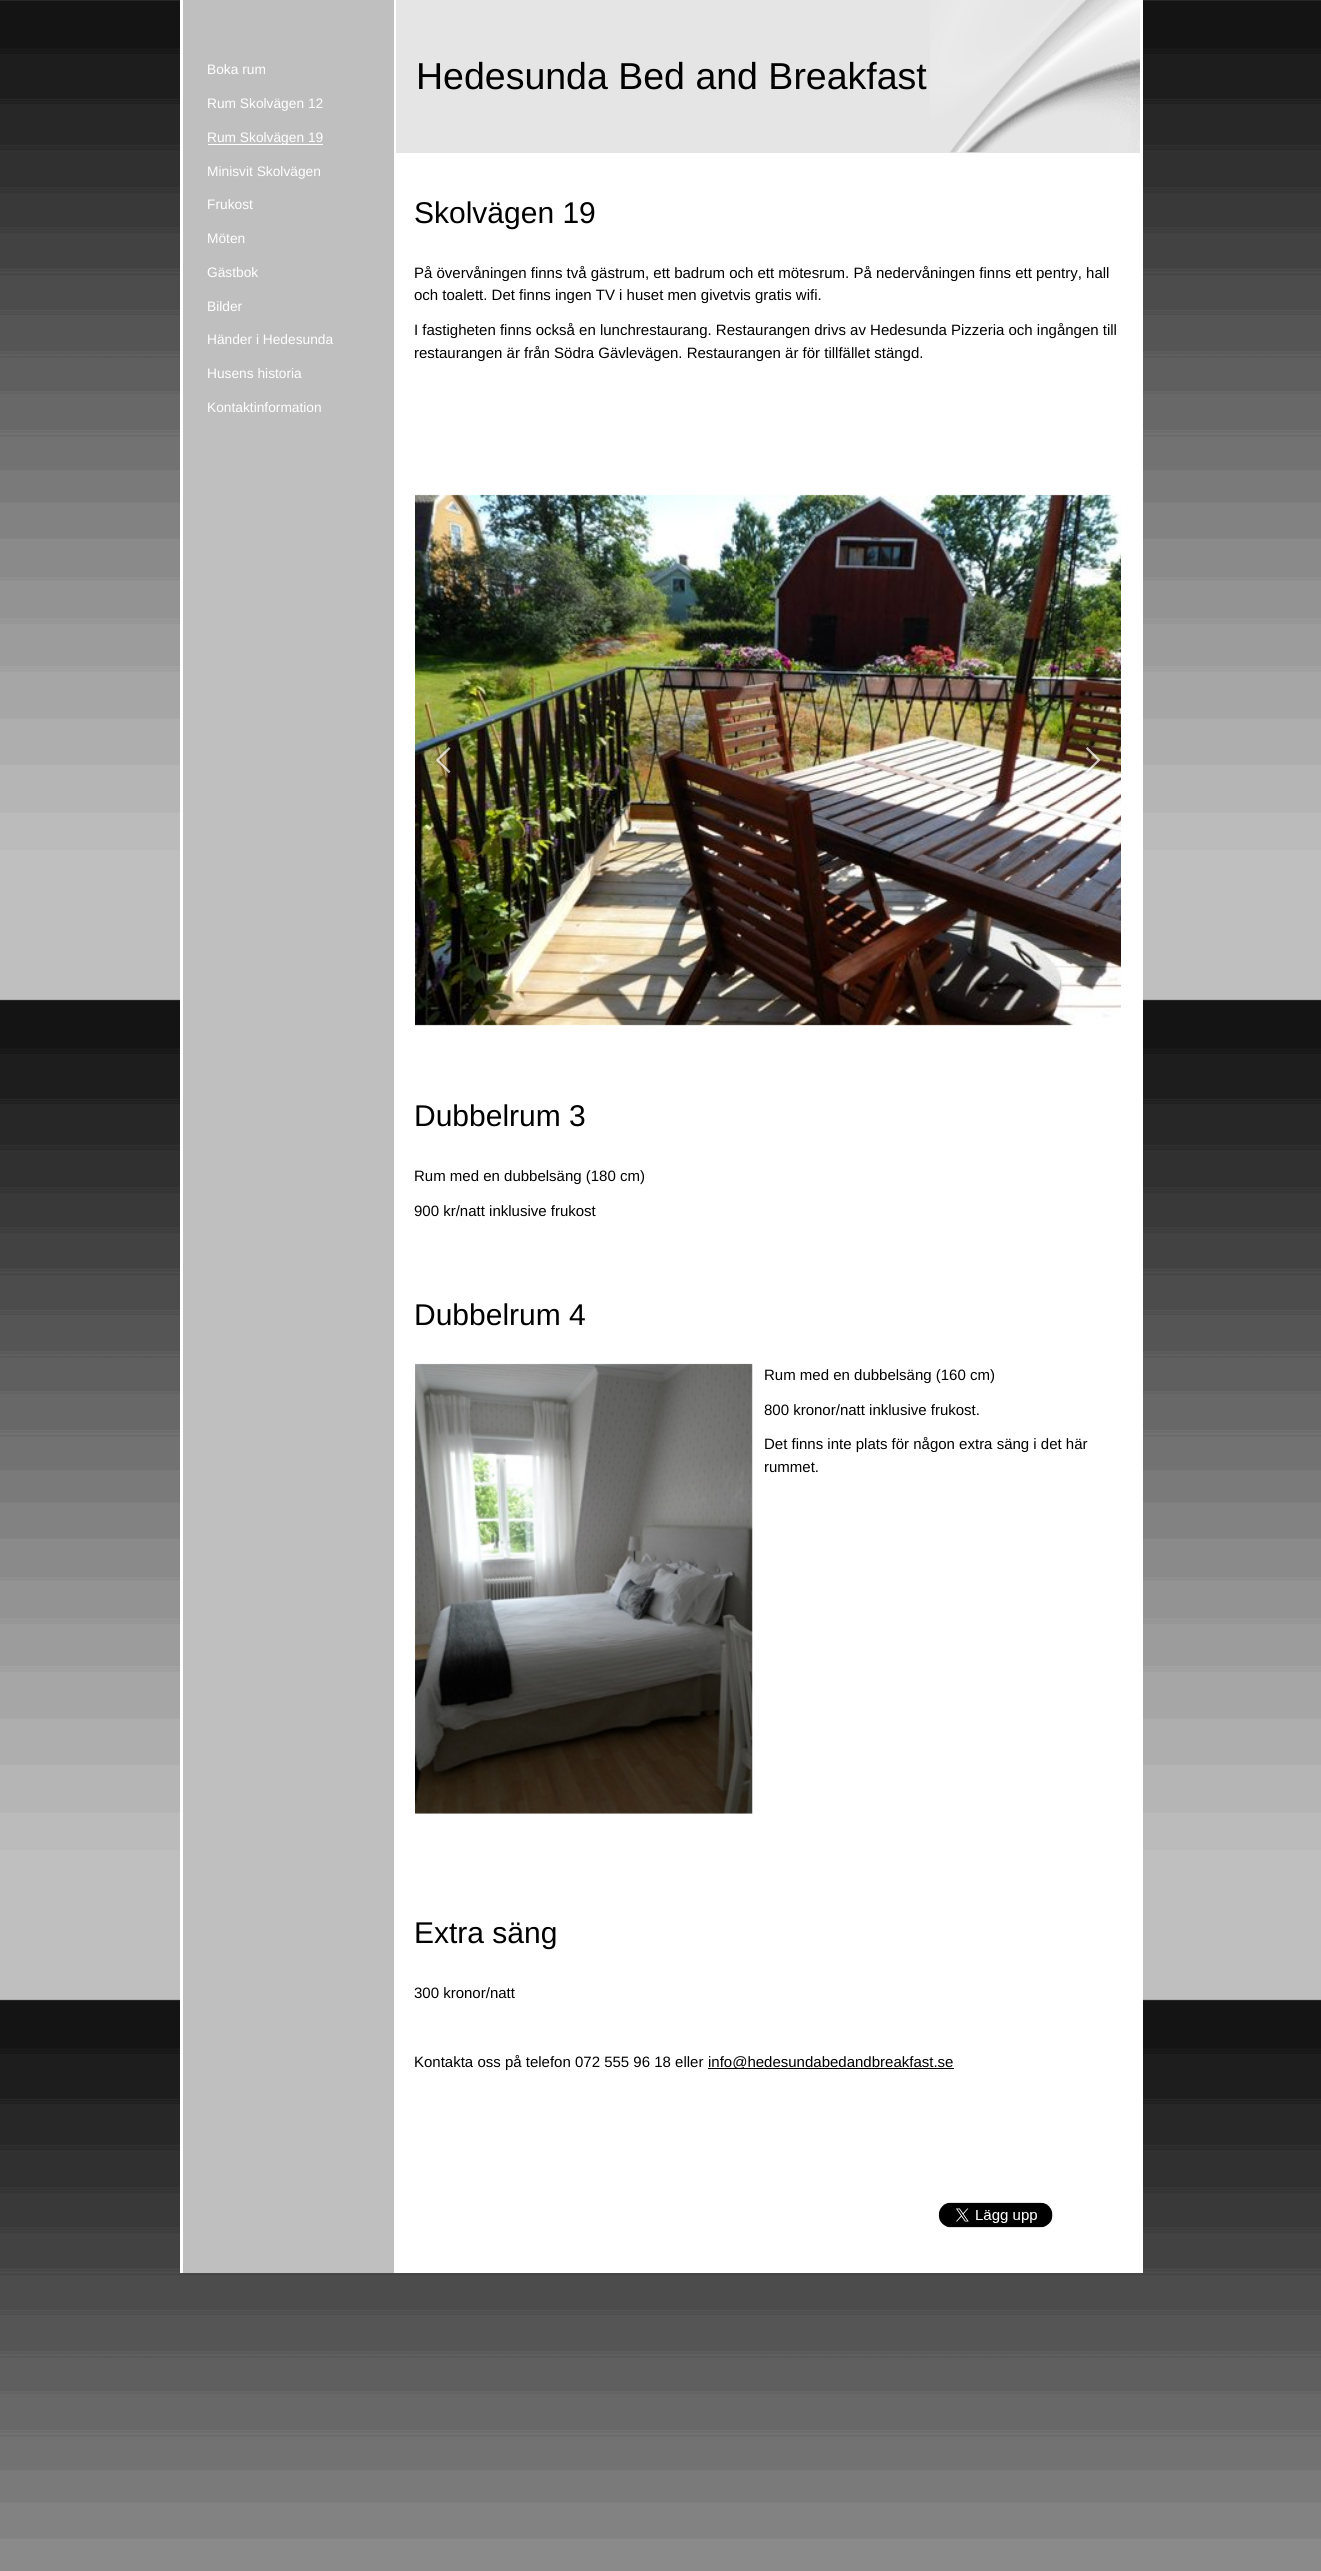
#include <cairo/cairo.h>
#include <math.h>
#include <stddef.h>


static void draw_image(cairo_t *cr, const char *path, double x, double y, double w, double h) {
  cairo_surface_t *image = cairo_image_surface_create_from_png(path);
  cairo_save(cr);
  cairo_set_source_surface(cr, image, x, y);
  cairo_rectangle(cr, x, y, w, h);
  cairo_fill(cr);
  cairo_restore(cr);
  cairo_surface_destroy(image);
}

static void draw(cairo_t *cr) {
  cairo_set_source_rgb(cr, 192 / 255.0, 191 / 255.0, 191 / 255.0);
  cairo_paint(cr);
  draw_image(cr, "images/1.png", 0, 0, 1321, 2571);
  cairo_set_source_rgb(cr, 1, 1, 1);
  cairo_rectangle(cr, 180, 0, 963, 2273);
  cairo_fill(cr);
  cairo_set_source_rgb(cr, 192 / 255.0, 191 / 255.0, 191 / 255.0);
  cairo_rectangle(cr, 183, 0, 211, 2273);
  cairo_fill(cr);
  cairo_set_source_rgb(cr, 1, 1, 1);
  cairo_rectangle(cr, 208, 144, 115, 1);
  cairo_fill(cr);
  cairo_set_source_rgb(cr, 229 / 255.0, 229 / 255.0, 229 / 255.0);
  cairo_rectangle(cr, 396, 0, 744, 153);
  cairo_fill(cr);
  draw_image(cr, "images/2.png", 930, 0, 210, 153);
  draw_image(cr, "images/3.png", 415, 494, 706, 532);
  draw_image(cr, "images/4.png", 434, 747, 17, 27);
  draw_image(cr, "images/5.png", 1085, 747, 17, 28);
  draw_image(cr, "images/6.png", 415, 1363, 338, 451);
  cairo_set_source_rgb(cr, 0, 0, 0);
  cairo_rectangle(cr, 708, 2068, 246, 1);
  cairo_fill(cr);
  draw_image(cr, "images/7.png", 938, 2202, 115, 26);
  cairo_select_font_face(cr, "Liberation Sans", CAIRO_FONT_SLANT_NORMAL, CAIRO_FONT_WEIGHT_NORMAL);
  cairo_set_font_size(cr, 13.75);
  cairo_set_source_rgb(cr, 1, 1, 1);
  cairo_move_to(cr, 207, 74);
  cairo_show_text(cr, "Boka rum");
  cairo_move_to(cr, 207, 108);
  cairo_show_text(cr, "Rum Skolvägen 12");
  cairo_move_to(cr, 207, 142);
  cairo_show_text(cr, "Rum Skolvägen 19");
  cairo_move_to(cr, 207, 176);
  cairo_show_text(cr, "Minisvit Skolvägen");
  cairo_move_to(cr, 207, 209);
  cairo_show_text(cr, "Frukost");
  cairo_move_to(cr, 207, 243);
  cairo_show_text(cr, "Möten");
  cairo_move_to(cr, 207, 277);
  cairo_show_text(cr, "Gästbok");
  cairo_move_to(cr, 207, 311);
  cairo_show_text(cr, "Bilder");
  cairo_move_to(cr, 207, 344);
  cairo_show_text(cr, "Händer i Hedesunda");
  cairo_move_to(cr, 207, 378);
  cairo_show_text(cr, "Husens historia");
  cairo_move_to(cr, 207, 412);
  cairo_show_text(cr, "Kontaktinformation");
  cairo_set_font_size(cr, 37.5);
  cairo_set_source_rgb(cr, 0, 0, 0);
  cairo_move_to(cr, 416, 89);
  cairo_show_text(cr, "Hedesunda Bed and Breakfast");
  cairo_set_font_size(cr, 30);
  cairo_move_to(cr, 414, 223);
  cairo_show_text(cr, "Skolvägen 19");
  cairo_set_font_size(cr, 15);
  cairo_move_to(cr, 414, 278);
  cairo_show_text(cr, "På övervåningen finns två gästrum, ett badrum och ett mötesrum. På nedervåningen finns ett pentry, hall");
  cairo_move_to(cr, 414, 300);
  cairo_show_text(cr, "och toalett. Det finns ingen TV i huset men givetvis gratis wifi.");
  cairo_move_to(cr, 414, 335);
  cairo_show_text(cr, "I fastigheten finns också en lunchrestaurang. Restaurangen drivs av Hedesunda Pizzeria och ingången till");
  cairo_move_to(cr, 414, 358);
  cairo_show_text(cr, "restaurangen är från Södra Gävlevägen. Restaurangen är för tillfället stängd.");
  cairo_set_font_size(cr, 30);
  cairo_move_to(cr, 414, 1126);
  cairo_show_text(cr, "Dubbelrum 3");
  cairo_set_font_size(cr, 15);
  cairo_move_to(cr, 414, 1181);
  cairo_show_text(cr, "Rum med en dubbelsäng (180 cm)");
  cairo_move_to(cr, 414, 1216);
  cairo_show_text(cr, "900 kr/natt inklusive frukost");
  cairo_set_font_size(cr, 30);
  cairo_move_to(cr, 414, 1325);
  cairo_show_text(cr, "Dubbelrum 4");
  cairo_set_font_size(cr, 15);
  cairo_move_to(cr, 764, 1380);
  cairo_show_text(cr, "Rum med en dubbelsäng (160 cm)");
  cairo_move_to(cr, 764, 1415);
  cairo_show_text(cr, "800 kronor/natt inklusive frukost.");
  cairo_move_to(cr, 764, 1449);
  cairo_show_text(cr, "Det finns inte plats för någon extra säng i det här");
  cairo_move_to(cr, 764, 1472);
  cairo_show_text(cr, "rummet.");
  cairo_set_font_size(cr, 30);
  cairo_move_to(cr, 414, 1943);
  cairo_show_text(cr, "Extra säng");
  cairo_set_font_size(cr, 15);
  cairo_move_to(cr, 414, 1998);
  cairo_show_text(cr, "300 kronor/natt");
  cairo_move_to(cr, 414, 2067);
  cairo_show_text(cr, "Kontakta oss på telefon 072 555 96 18 eller");
  cairo_move_to(cr, 708, 2067);
  cairo_show_text(cr, "info@hedesundabedandbreakfast.se");
}

int main(void) {
  cairo_surface_t *surface = cairo_image_surface_create(CAIRO_FORMAT_RGB24, 1321, 2571);
  cairo_t *cr = cairo_create(surface);
  cairo_font_options_t *options = cairo_font_options_create();
  cairo_font_options_set_hint_metrics(options, CAIRO_HINT_METRICS_OFF);
  cairo_font_options_set_hint_style(options, CAIRO_HINT_STYLE_NONE);
  cairo_set_font_options(cr, options);
  cairo_set_miter_limit(cr, 4);
  draw(cr);
  cairo_surface_write_to_png(surface, "out.png");
  cairo_font_options_destroy(options);
  cairo_destroy(cr);
  cairo_surface_destroy(surface);
  return 0;
}
